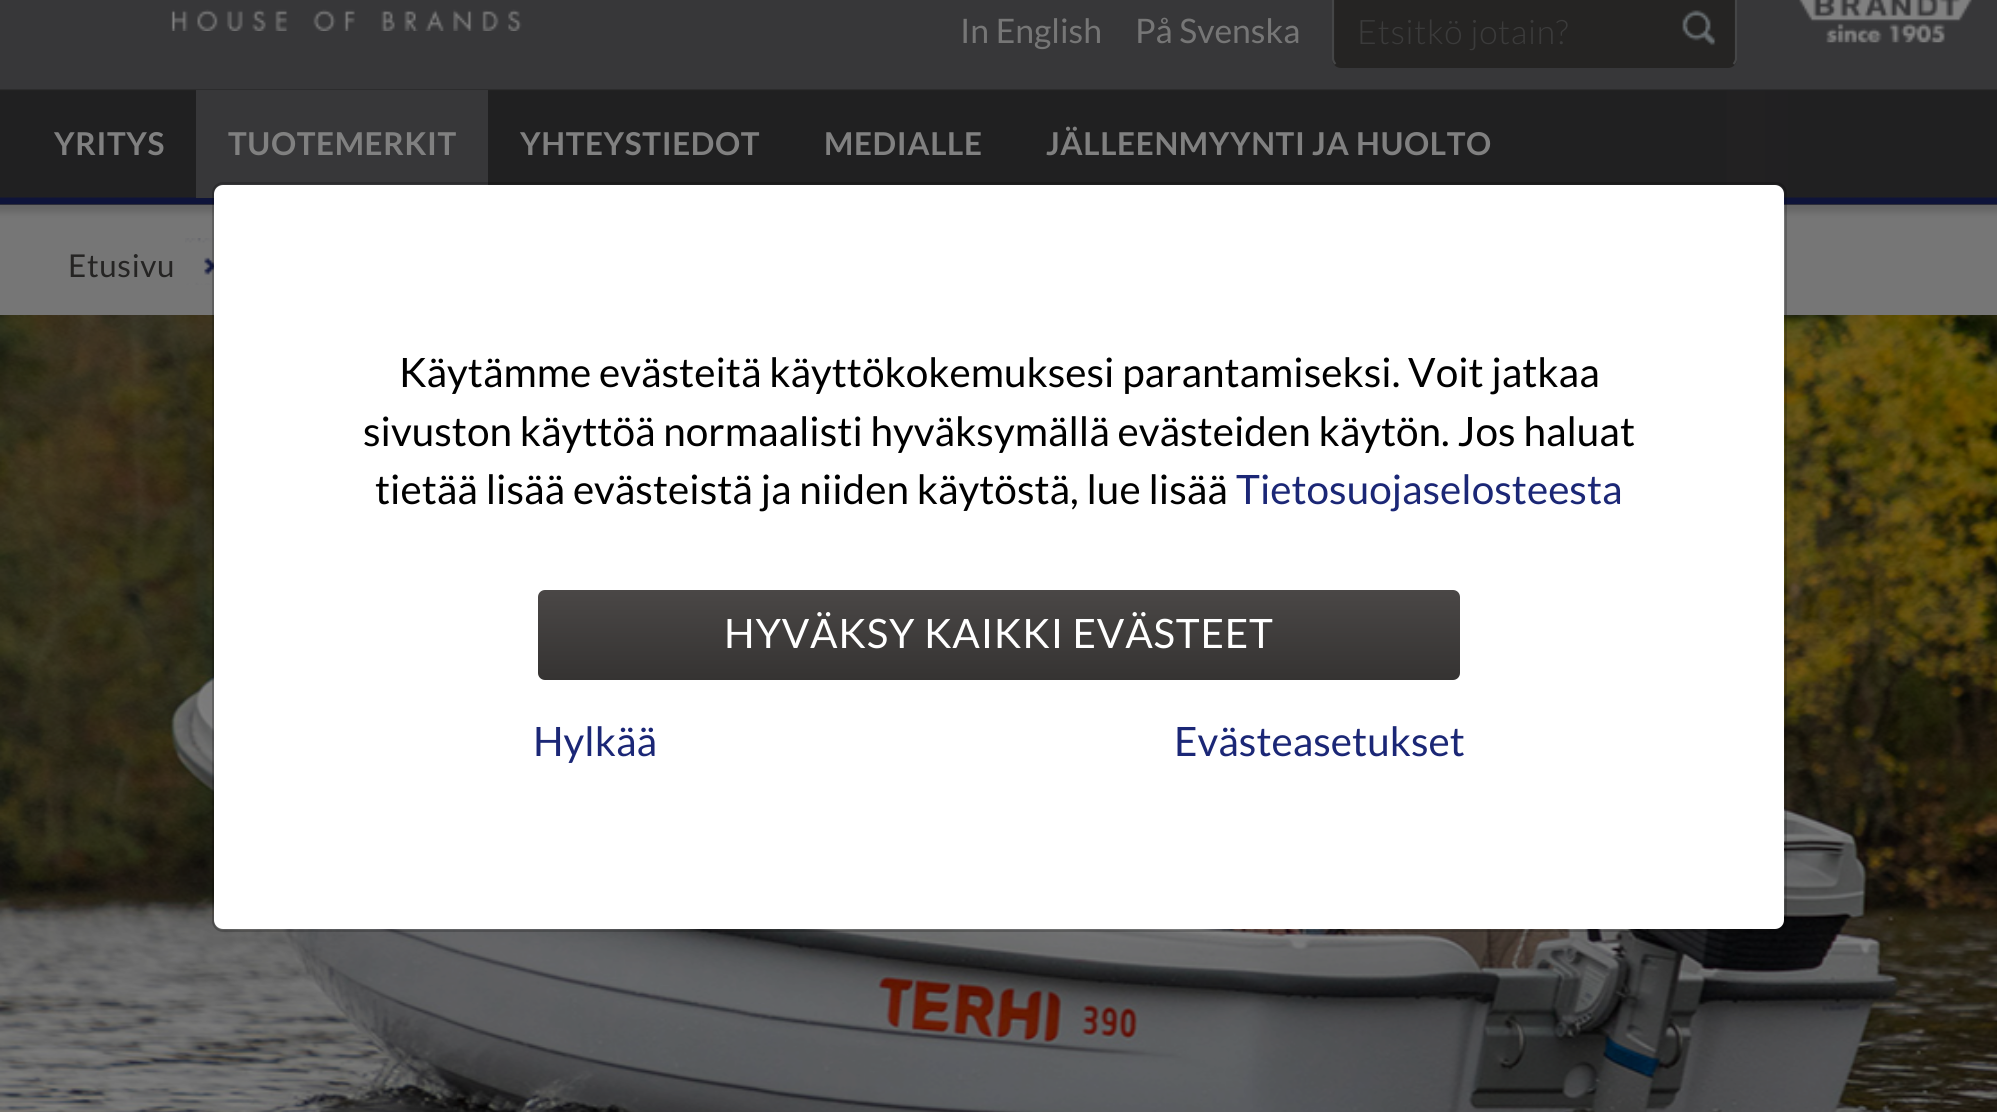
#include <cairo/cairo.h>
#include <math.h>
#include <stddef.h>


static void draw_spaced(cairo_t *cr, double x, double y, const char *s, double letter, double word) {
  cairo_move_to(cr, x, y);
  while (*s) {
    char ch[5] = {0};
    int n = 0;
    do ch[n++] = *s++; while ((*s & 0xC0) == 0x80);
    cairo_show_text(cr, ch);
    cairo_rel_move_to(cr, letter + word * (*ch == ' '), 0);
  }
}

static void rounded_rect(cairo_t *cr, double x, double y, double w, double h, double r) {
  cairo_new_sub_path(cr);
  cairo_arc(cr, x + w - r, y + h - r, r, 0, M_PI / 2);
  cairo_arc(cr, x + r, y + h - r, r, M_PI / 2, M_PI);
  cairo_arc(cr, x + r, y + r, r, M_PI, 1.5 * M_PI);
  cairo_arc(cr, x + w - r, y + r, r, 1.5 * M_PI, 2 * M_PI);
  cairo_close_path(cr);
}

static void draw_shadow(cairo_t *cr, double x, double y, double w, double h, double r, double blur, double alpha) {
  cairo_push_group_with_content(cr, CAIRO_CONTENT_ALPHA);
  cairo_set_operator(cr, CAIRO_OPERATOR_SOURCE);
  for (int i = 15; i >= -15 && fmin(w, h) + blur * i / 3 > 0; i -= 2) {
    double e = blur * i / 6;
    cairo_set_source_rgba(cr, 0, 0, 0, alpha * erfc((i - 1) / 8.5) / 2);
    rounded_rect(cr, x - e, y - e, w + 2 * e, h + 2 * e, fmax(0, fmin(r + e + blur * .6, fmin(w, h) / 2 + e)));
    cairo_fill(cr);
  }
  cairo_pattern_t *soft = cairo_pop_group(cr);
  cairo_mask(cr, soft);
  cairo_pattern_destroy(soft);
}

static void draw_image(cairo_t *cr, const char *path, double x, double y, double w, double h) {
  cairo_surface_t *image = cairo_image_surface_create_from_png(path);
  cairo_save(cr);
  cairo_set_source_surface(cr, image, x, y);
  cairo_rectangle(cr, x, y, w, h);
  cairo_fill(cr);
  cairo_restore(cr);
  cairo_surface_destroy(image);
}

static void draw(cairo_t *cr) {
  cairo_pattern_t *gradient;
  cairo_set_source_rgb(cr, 118 / 255.0, 118 / 255.0, 118 / 255.0);
  cairo_paint(cr);
  cairo_set_source_rgb(cr, 0, 0, 0);
  draw_shadow(cr, -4, -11, 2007, 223, 0, 3.5, 0.15);
  cairo_set_source_rgb(cr, 55 / 255.0, 55 / 255.0, 57 / 255.0);
  cairo_rectangle(cr, 0, 0, 1997, 205);
  cairo_fill(cr);
  draw_image(cr, "images/1.png", 0, 89, 1997, 116);
  draw_image(cr, "images/2.png", 171, 9, 351, 22);
  cairo_set_source_rgb(cr, 37 / 255.0, 36 / 255.0, 35 / 255.0);
  rounded_rect(cr, 1332, -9, 405, 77, 9);
  cairo_fill(cr);
  cairo_new_path(cr);
  cairo_move_to(cr, 1335.5, 64);
  cairo_curve_to(cr, 1334, 62.5, 1333, 60.5, 1333, 58.5);
  cairo_line_to(cr, 1333, 0);
  cairo_curve_to(cr, 1333, -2, 1334, -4, 1335.5, -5.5);
  cairo_curve_to(cr, 1337, -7, 1339, -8, 1341, -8);
  cairo_line_to(cr, 1728, -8);
  cairo_curve_to(cr, 1730, -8, 1732, -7, 1733.5, -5.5);
  cairo_curve_to(cr, 1735, -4, 1736, -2, 1736, 0);
  cairo_line_to(cr, 1736, 58.5);
  cairo_curve_to(cr, 1736, 60.5, 1735, 62.5, 1733.5, 64);
  cairo_set_source_rgb(cr, 69 / 255.0, 70 / 255.0, 71 / 255.0);
  cairo_set_line_width(cr, 2.2);
  cairo_stroke(cr);
  draw_image(cr, "images/3.png", 1682, 10, 34, 36);
  draw_image(cr, "images/4.png", 1799, 0, 173, 43);
  cairo_set_source_rgb(cr, 55 / 255.0, 55 / 255.0, 57 / 255.0);
  cairo_rectangle(cr, 196, 90, 292, 108);
  cairo_fill(cr);
  draw_image(cr, "images/5.png", 185, 238, 29, 47);
  draw_image(cr, "images/6.png", 0, 315, 1997, 797);
  cairo_set_source_rgb(cr, 1, 1, 1);
  rounded_rect(cr, 214, 185, 1570, 744, 9);
  cairo_fill(cr);
  rounded_rect(cr, 213, 183, 1573, 748, 10);
  cairo_set_source_rgba(cr, 0, 0, 0, 0.2);
  cairo_set_line_width(cr, 2);
  cairo_stroke(cr);
  gradient = cairo_pattern_create_linear(999, 590, 999, 680);
  cairo_pattern_add_color_stop_rgba(gradient, 0, 74 / 255.0, 71 / 255.0, 70 / 255.0, 1);
  cairo_pattern_add_color_stop_rgba(gradient, 1, 53 / 255.0, 51 / 255.0, 50 / 255.0, 1);
  cairo_set_source(cr, gradient);
  cairo_pattern_destroy(gradient);
  rounded_rect(cr, 538, 590, 922, 90, 7);
  cairo_fill(cr);
  cairo_select_font_face(cr, "Lato", CAIRO_FONT_SLANT_NORMAL, CAIRO_FONT_WEIGHT_NORMAL);
  cairo_set_font_size(cr, 33.75);
  cairo_set_source_rgb(cr, 118 / 255.0, 118 / 255.0, 118 / 255.0);
  cairo_move_to(cr, 960, 43);
  cairo_show_text(cr, "In English");
  cairo_move_to(cr, 1135, 43);
  cairo_show_text(cr, "På Svenska");
  cairo_select_font_face(cr, "Lato Light", CAIRO_FONT_SLANT_NORMAL, CAIRO_FONT_WEIGHT_NORMAL);
  cairo_set_source_rgb(cr, 59 / 255.0, 59 / 255.0, 59 / 255.0);
  draw_spaced(cr, 1357, 44, "Etsitkö jotain?", 0.7, 0);
  cairo_select_font_face(cr, "Lato", CAIRO_FONT_SLANT_NORMAL, CAIRO_FONT_WEIGHT_BOLD);
  cairo_set_font_size(cr, 31.5);
  cairo_set_source_rgb(cr, 128 / 255.0, 128 / 255.0, 128 / 255.0);
  draw_spaced(cr, 54, 155, "YRITYS", 0.6, 0);
  draw_spaced(cr, 228, 155, "TUOTEMERKIT", 0.6, 0);
  draw_spaced(cr, 520, 155, "YHTEYSTIEDOT", 0.6, 0);
  draw_spaced(cr, 824, 155, "MEDIALLE", 0.6, 0);
  draw_spaced(cr, 1046, 155, "JÄLLEENMYYNTI JA HUOLTO", 0.6, 0);
  cairo_select_font_face(cr, "Lato", CAIRO_FONT_SLANT_NORMAL, CAIRO_FONT_WEIGHT_NORMAL);
  cairo_set_source_rgb(cr, 37 / 255.0, 36 / 255.0, 35 / 255.0);
  draw_spaced(cr, 68, 277, "Etusivu", 0.6, 0);
  cairo_set_font_size(cr, 40.5);
  cairo_set_source_rgb(cr, 0, 0, 0);
  cairo_move_to(cr, 399, 387);
  cairo_show_text(cr, "Käytämme evästeitä käyttökokemuksesi parantamiseksi. Voit jatkaa");
  cairo_move_to(cr, 363, 446);
  cairo_show_text(cr, "sivuston käyttöä normaalisti hyväksymällä evästeiden käytön. Jos haluat");
  cairo_move_to(cr, 375, 504);
  cairo_show_text(cr, "tietää lisää evästeistä ja niiden käytöstä, lue lisää");
  cairo_set_source_rgb(cr, 27 / 255.0, 39 / 255.0, 118 / 255.0);
  cairo_move_to(cr, 1236, 504);
  cairo_show_text(cr, "Tietosuojaselosteesta");
  cairo_set_source_rgb(cr, 1, 1, 1);
  draw_spaced(cr, 724, 648, "HYVÄKSY KAIKKI EVÄSTEET", 0.8, 0);
  cairo_set_source_rgb(cr, 27 / 255.0, 39 / 255.0, 118 / 255.0);
  cairo_move_to(cr, 533, 756);
  cairo_show_text(cr, "Hylkää");
  cairo_move_to(cr, 1174, 756);
  cairo_show_text(cr, "Evästeasetukset");
}

int main(void) {
  cairo_surface_t *surface = cairo_image_surface_create(CAIRO_FORMAT_RGB24, 1997, 1112);
  cairo_t *cr = cairo_create(surface);
  cairo_font_options_t *options = cairo_font_options_create();
  cairo_font_options_set_hint_metrics(options, CAIRO_HINT_METRICS_OFF);
  cairo_font_options_set_hint_style(options, CAIRO_HINT_STYLE_NONE);
  cairo_set_font_options(cr, options);
  cairo_set_miter_limit(cr, 4);
  draw(cr);
  cairo_surface_write_to_png(surface, "out.png");
  cairo_font_options_destroy(options);
  cairo_destroy(cr);
  cairo_surface_destroy(surface);
  return 0;
}
